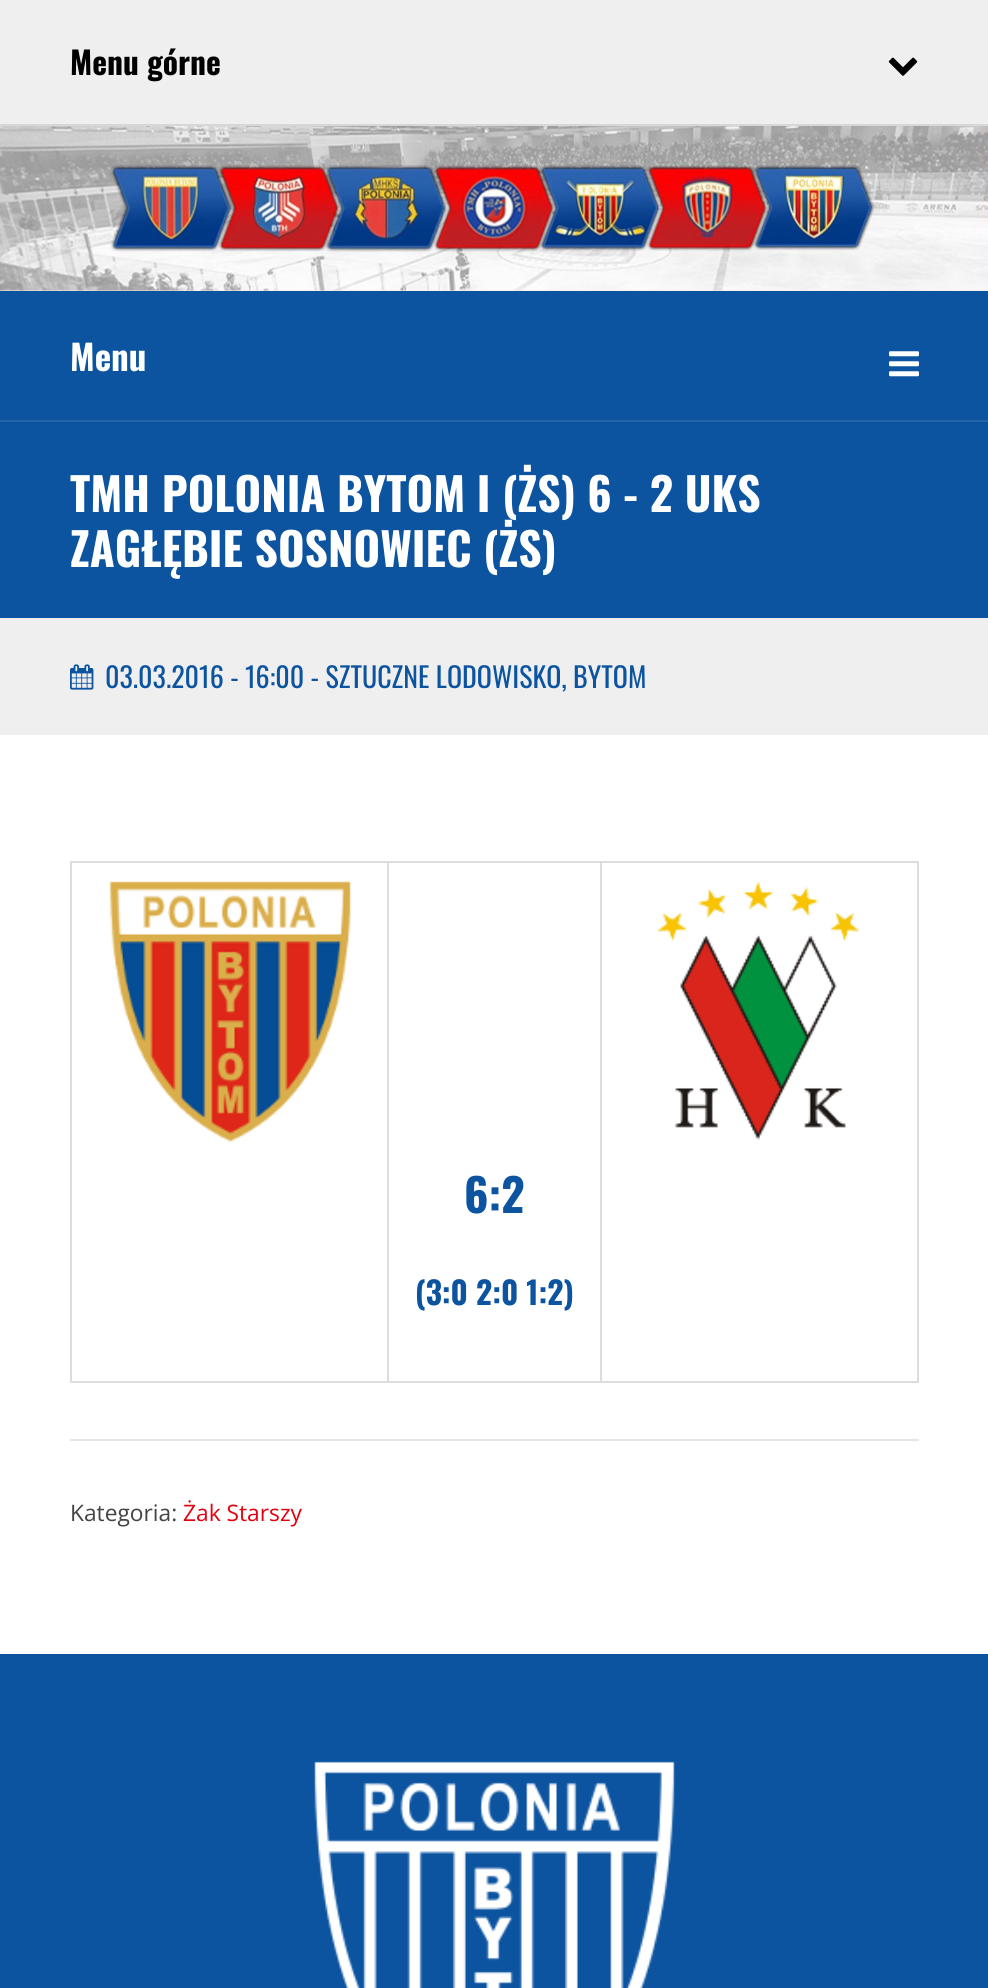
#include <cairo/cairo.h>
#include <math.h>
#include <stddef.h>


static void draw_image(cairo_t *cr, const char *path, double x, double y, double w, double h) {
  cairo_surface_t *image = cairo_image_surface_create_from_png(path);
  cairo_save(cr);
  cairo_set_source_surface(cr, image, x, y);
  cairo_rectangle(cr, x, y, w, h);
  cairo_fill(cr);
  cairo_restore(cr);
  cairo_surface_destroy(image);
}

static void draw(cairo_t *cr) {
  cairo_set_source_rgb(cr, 239 / 255.0, 239 / 255.0, 239 / 255.0);
  cairo_paint(cr);
  cairo_set_source_rgb(cr, 215 / 255.0, 215 / 255.0, 215 / 255.0);
  cairo_rectangle(cr, 0, 124, 988, 2);
  cairo_fill(cr);
  draw_image(cr, "images/1.png", 888, 57, 30, 19);
  draw_image(cr, "images/2.png", 0, 126, 988, 165);
  cairo_set_source_rgb(cr, 12 / 255.0, 84 / 255.0, 160 / 255.0);
  cairo_rectangle(cr, 0, 291, 988, 129);
  cairo_fill(cr);
  draw_image(cr, "images/3.png", 889, 351, 30, 26);
  cairo_rectangle(cr, 0, 422, 988, 196);
  cairo_fill(cr);
  cairo_set_source_rgb(cr, 36 / 255.0, 101 / 255.0, 170 / 255.0);
  cairo_rectangle(cr, 0, 420, 988, 2);
  cairo_fill(cr);
  draw_image(cr, "images/4.png", 70, 664, 24, 26);
  cairo_set_source_rgb(cr, 1, 1, 1);
  cairo_rectangle(cr, 0, 735, 988, 919);
  cairo_fill(cr);
  cairo_set_source_rgb(cr, 221 / 255.0, 221 / 255.0, 221 / 255.0);
  cairo_rectangle(cr, 70, 861, 849, 2);
  cairo_fill(cr);
  cairo_rectangle(cr, 917, 861, 2, 522);
  cairo_fill(cr);
  cairo_rectangle(cr, 70, 1381, 849, 2);
  cairo_fill(cr);
  cairo_rectangle(cr, 70, 861, 2, 522);
  cairo_fill(cr);
  draw_image(cr, "images/5.png", 109, 881, 242, 261);
  cairo_rectangle(cr, 600, 861, 2, 522);
  cairo_fill(cr);
  draw_image(cr, "images/6.png", 657, 881, 203, 259);
  cairo_rectangle(cr, 387, 861, 2, 522);
  cairo_fill(cr);
  cairo_set_source_rgb(cr, 230 / 255.0, 230 / 255.0, 230 / 255.0);
  cairo_rectangle(cr, 70, 1439, 849, 2);
  cairo_fill(cr);
  cairo_set_source_rgb(cr, 12 / 255.0, 84 / 255.0, 160 / 255.0);
  cairo_rectangle(cr, 0, 1654, 988, 334);
  cairo_fill(cr);
  draw_image(cr, "images/7.png", 314, 1761, 361, 227);
  cairo_select_font_face(cr, "Oswald", CAIRO_FONT_SLANT_NORMAL, CAIRO_FONT_WEIGHT_BOLD);
  cairo_set_font_size(cr, 31.5);
  cairo_set_source_rgb(cr, 0, 0, 0);
  cairo_move_to(cr, 70, 75);
  cairo_show_text(cr, "Menu górne");
  cairo_set_font_size(cr, 35);
  cairo_set_source_rgb(cr, 1, 1, 1);
  cairo_move_to(cr, 70, 371);
  cairo_show_text(cr, "Menu");
  cairo_set_font_size(cr, 45.5);
  cairo_move_to(cr, 70, 512);
  cairo_show_text(cr, "TMH POLONIA BYTOM I (ŻS) 6 - 2 UKS");
  cairo_move_to(cr, 70, 567);
  cairo_show_text(cr, "ZAGŁĘBIE SOSNOWIEC (ŻS)");
  cairo_select_font_face(cr, "Oswald", CAIRO_FONT_SLANT_NORMAL, CAIRO_FONT_WEIGHT_NORMAL);
  cairo_set_font_size(cr, 28);
  cairo_set_source_rgb(cr, 12 / 255.0, 84 / 255.0, 160 / 255.0);
  cairo_move_to(cr, 105, 688);
  cairo_show_text(cr, "03.03.2016 - 16:00 - SZTUCZNE LODOWISKO, BYTOM");
  cairo_select_font_face(cr, "Oswald", CAIRO_FONT_SLANT_NORMAL, CAIRO_FONT_WEIGHT_BOLD);
  cairo_set_font_size(cr, 45.5);
  cairo_move_to(cr, 464, 1213);
  cairo_show_text(cr, "6:2");
  cairo_set_font_size(cr, 31.5);
  cairo_move_to(cr, 415, 1305);
  cairo_show_text(cr, "(3:0 2:0 1:2)");
  cairo_select_font_face(cr, "Open Sans", CAIRO_FONT_SLANT_NORMAL, CAIRO_FONT_WEIGHT_NORMAL);
  cairo_set_font_size(cr, 22.75);
  cairo_set_source_rgb(cr, 68 / 255.0, 68 / 255.0, 68 / 255.0);
  cairo_move_to(cr, 70, 1521);
  cairo_show_text(cr, "Kategoria:");
  cairo_set_source_rgb(cr, 227 / 255.0, 0, 15 / 255.0);
  cairo_move_to(cr, 183, 1521);
  cairo_show_text(cr, "Żak Starszy");
}

int main(void) {
  cairo_surface_t *surface = cairo_image_surface_create(CAIRO_FORMAT_RGB24, 988, 1988);
  cairo_t *cr = cairo_create(surface);
  cairo_font_options_t *options = cairo_font_options_create();
  cairo_font_options_set_hint_metrics(options, CAIRO_HINT_METRICS_OFF);
  cairo_font_options_set_hint_style(options, CAIRO_HINT_STYLE_NONE);
  cairo_set_font_options(cr, options);
  cairo_set_miter_limit(cr, 4);
  draw(cr);
  cairo_surface_write_to_png(surface, "out.png");
  cairo_font_options_destroy(options);
  cairo_destroy(cr);
  cairo_surface_destroy(surface);
  return 0;
}
